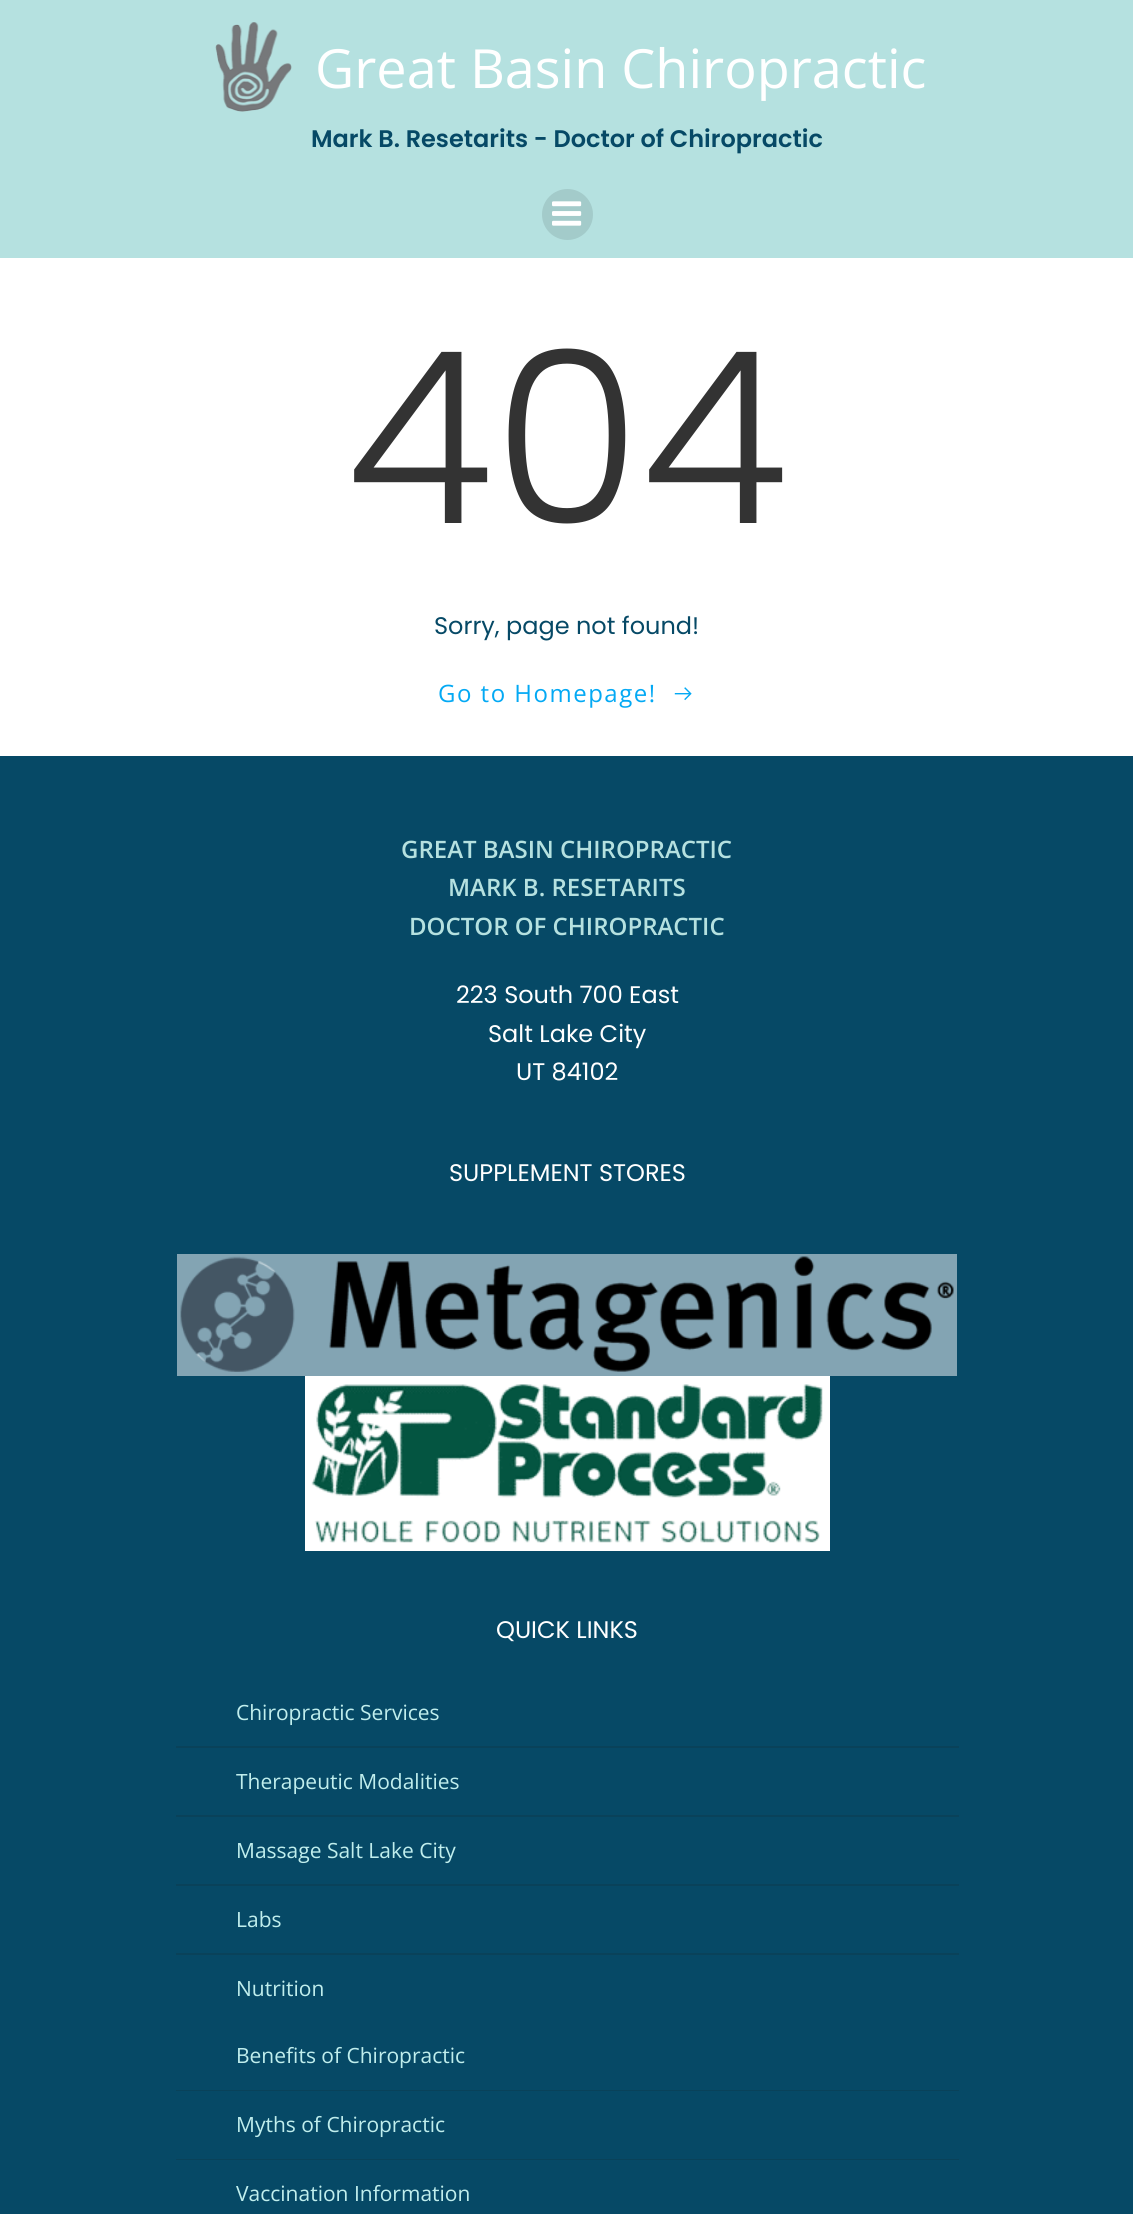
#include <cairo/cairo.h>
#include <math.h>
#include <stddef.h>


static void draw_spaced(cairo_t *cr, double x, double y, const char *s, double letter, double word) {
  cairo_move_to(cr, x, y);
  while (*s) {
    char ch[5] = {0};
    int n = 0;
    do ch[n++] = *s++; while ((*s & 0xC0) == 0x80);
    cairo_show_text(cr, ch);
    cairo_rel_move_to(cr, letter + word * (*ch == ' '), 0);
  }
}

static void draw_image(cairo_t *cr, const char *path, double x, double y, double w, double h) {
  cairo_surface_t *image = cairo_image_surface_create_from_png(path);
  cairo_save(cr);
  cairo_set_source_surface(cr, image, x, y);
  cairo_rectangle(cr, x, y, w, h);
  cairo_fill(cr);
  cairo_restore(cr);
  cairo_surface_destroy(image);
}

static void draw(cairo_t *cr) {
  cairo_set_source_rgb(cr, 1, 1, 1);
  cairo_paint(cr);
  cairo_set_source_rgb(cr, 181 / 255.0, 225 / 255.0, 224 / 255.0);
  cairo_rectangle(cr, 0, 0, 1133, 258);
  cairo_fill(cr);
  draw_image(cr, "images/1.png", 215, 22, 77, 90);
  cairo_set_source_rgb(cr, 163 / 255.0, 203 / 255.0, 202 / 255.0);
  cairo_arc(cr, 567.5, 214.5, 25.5, 0, 2 * M_PI);
  cairo_fill(cr);
  draw_image(cr, "images/2.png", 552, 201, 30, 25);
  draw_image(cr, "images/3.png", 674, 687, 18, 14);
  cairo_set_source_rgb(cr, 6 / 255.0, 73 / 255.0, 102 / 255.0);
  cairo_rectangle(cr, 0, 756, 1133, 1458);
  cairo_fill(cr);
  cairo_set_source_rgb(cr, 131 / 255.0, 164 / 255.0, 179 / 255.0);
  cairo_rectangle(cr, 177, 1254, 780, 122);
  cairo_fill(cr);
  draw_image(cr, "images/4.png", 180, 1256, 774, 116);
  cairo_set_source_rgb(cr, 1, 1, 1);
  cairo_rectangle(cr, 305, 1376, 525, 175);
  cairo_fill(cr);
  draw_image(cr, "images/5.png", 311, 1384, 512, 159);
  cairo_set_source_rgb(cr, 9 / 255.0, 66 / 255.0, 90 / 255.0);
  cairo_rectangle(cr, 176, 1746, 783, 2);
  cairo_fill(cr);
  cairo_rectangle(cr, 176, 1815, 783, 2);
  cairo_fill(cr);
  cairo_rectangle(cr, 176, 1884, 783, 2);
  cairo_fill(cr);
  cairo_rectangle(cr, 176, 1953, 783, 2);
  cairo_fill(cr);
  cairo_rectangle(cr, 176, 2090, 783, 1);
  cairo_fill(cr);
  cairo_rectangle(cr, 176, 2159, 783, 1);
  cairo_fill(cr);
  cairo_select_font_face(cr, "Open Sans", CAIRO_FONT_SLANT_NORMAL, CAIRO_FONT_WEIGHT_NORMAL);
  cairo_set_font_size(cr, 54);
  cairo_set_source_rgb(cr, 1, 1, 1);
  cairo_move_to(cr, 315, 88);
  cairo_show_text(cr, "Great Basin Chiropractic");
  cairo_select_font_face(cr, "Poppins SemiBold", CAIRO_FONT_SLANT_NORMAL, CAIRO_FONT_WEIGHT_NORMAL);
  cairo_set_font_size(cr, 24);
  cairo_set_source_rgb(cr, 6 / 255.0, 73 / 255.0, 102 / 255.0);
  cairo_move_to(cr, 311, 147);
  cairo_show_text(cr, "Mark B. Resetarits - Doctor of Chiropractic");
  cairo_select_font_face(cr, "Poppins Light", CAIRO_FONT_SLANT_NORMAL, CAIRO_FONT_WEIGHT_NORMAL);
  cairo_set_font_size(cr, 240);
  cairo_set_source_rgb(cr, 51 / 255.0, 51 / 255.0, 51 / 255.0);
  cairo_move_to(cr, 346, 523);
  cairo_show_text(cr, "404");
  cairo_select_font_face(cr, "Poppins", CAIRO_FONT_SLANT_NORMAL, CAIRO_FONT_WEIGHT_NORMAL);
  cairo_set_font_size(cr, 24);
  cairo_set_source_rgb(cr, 6 / 255.0, 73 / 255.0, 102 / 255.0);
  cairo_move_to(cr, 434, 634);
  cairo_show_text(cr, "Sorry, page not found!");
  cairo_select_font_face(cr, "Open Sans", CAIRO_FONT_SLANT_NORMAL, CAIRO_FONT_WEIGHT_NORMAL);
  cairo_set_source_rgb(cr, 3 / 255.0, 169 / 255.0, 244 / 255.0);
  draw_spaced(cr, 438, 702, "Go to Homepage!", 1.5, 0);
  cairo_select_font_face(cr, "Open Sans SemiBold", CAIRO_FONT_SLANT_NORMAL, CAIRO_FONT_WEIGHT_NORMAL);
  cairo_set_source_rgb(cr, 181 / 255.0, 225 / 255.0, 224 / 255.0);
  cairo_move_to(cr, 401, 858);
  cairo_show_text(cr, "GREAT BASIN CHIROPRACTIC");
  cairo_move_to(cr, 448, 896);
  cairo_show_text(cr, "MARK B. RESETARITS");
  cairo_move_to(cr, 409, 935);
  cairo_show_text(cr, "DOCTOR OF CHIROPRACTIC");
  cairo_select_font_face(cr, "Poppins", CAIRO_FONT_SLANT_NORMAL, CAIRO_FONT_WEIGHT_NORMAL);
  cairo_set_source_rgb(cr, 1, 1, 1);
  cairo_move_to(cr, 456, 1003);
  cairo_show_text(cr, "223 South 700 East");
  cairo_move_to(cr, 488, 1042);
  cairo_show_text(cr, "Salt Lake City");
  cairo_move_to(cr, 516, 1080);
  cairo_show_text(cr, "UT 84102");
  cairo_move_to(cr, 449, 1181);
  cairo_show_text(cr, "SUPPLEMENT STORES");
  cairo_move_to(cr, 496, 1638);
  cairo_show_text(cr, "QUICK LINKS");
  cairo_select_font_face(cr, "Open Sans", CAIRO_FONT_SLANT_NORMAL, CAIRO_FONT_WEIGHT_NORMAL);
  cairo_set_font_size(cr, 21);
  cairo_set_source_rgb(cr, 192 / 255.0, 238 / 255.0, 237 / 255.0);
  cairo_move_to(cr, 236, 1720);
  cairo_show_text(cr, "Chiropractic Services");
  cairo_move_to(cr, 236, 1789);
  cairo_show_text(cr, "Therapeutic Modalities");
  cairo_move_to(cr, 236, 1858);
  cairo_show_text(cr, "Massage Salt Lake City");
  cairo_move_to(cr, 236, 1927);
  cairo_show_text(cr, "Labs");
  cairo_move_to(cr, 236, 1996);
  cairo_show_text(cr, "Nutrition");
  cairo_move_to(cr, 236, 2063);
  cairo_show_text(cr, "Benefits of Chiropractic");
  cairo_move_to(cr, 236, 2132);
  cairo_show_text(cr, "Myths of Chiropractic");
  cairo_move_to(cr, 236, 2201);
  cairo_show_text(cr, "Vaccination Information");
}

int main(void) {
  cairo_surface_t *surface = cairo_image_surface_create(CAIRO_FORMAT_RGB24, 1133, 2214);
  cairo_t *cr = cairo_create(surface);
  cairo_font_options_t *options = cairo_font_options_create();
  cairo_font_options_set_hint_metrics(options, CAIRO_HINT_METRICS_OFF);
  cairo_font_options_set_hint_style(options, CAIRO_HINT_STYLE_NONE);
  cairo_set_font_options(cr, options);
  cairo_set_miter_limit(cr, 4);
  draw(cr);
  cairo_surface_write_to_png(surface, "out.png");
  cairo_font_options_destroy(options);
  cairo_destroy(cr);
  cairo_surface_destroy(surface);
  return 0;
}
